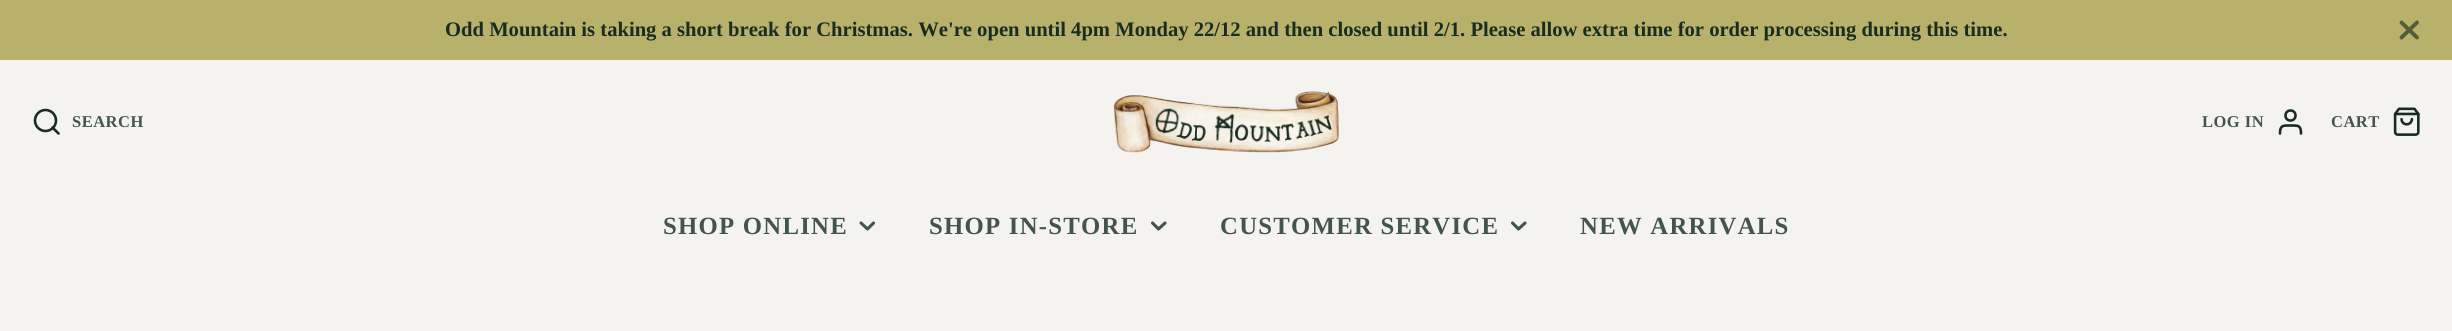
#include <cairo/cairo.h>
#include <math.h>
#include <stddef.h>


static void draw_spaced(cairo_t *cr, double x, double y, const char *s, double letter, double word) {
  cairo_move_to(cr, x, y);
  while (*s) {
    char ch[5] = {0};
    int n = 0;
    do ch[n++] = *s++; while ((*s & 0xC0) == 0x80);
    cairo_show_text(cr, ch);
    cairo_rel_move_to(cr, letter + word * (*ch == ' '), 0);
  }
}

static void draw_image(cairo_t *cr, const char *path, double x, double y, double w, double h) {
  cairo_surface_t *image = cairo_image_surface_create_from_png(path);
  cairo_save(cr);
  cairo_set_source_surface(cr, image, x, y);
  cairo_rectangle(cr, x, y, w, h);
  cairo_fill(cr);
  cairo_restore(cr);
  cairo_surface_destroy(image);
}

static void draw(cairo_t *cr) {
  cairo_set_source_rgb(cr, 245 / 255.0, 243 / 255.0, 239 / 255.0);
  cairo_paint(cr);
  cairo_set_source_rgb(cr, 184 / 255.0, 177 / 255.0, 108 / 255.0);
  cairo_rectangle(cr, 0, 0, 2452, 60);
  cairo_fill(cr);
  cairo_new_path(cr);
  cairo_move_to(cr, 2417, 22.5);
  cairo_line_to(cr, 2401.5, 37.5);
  cairo_move_to(cr, 2401.5, 22.5);
  cairo_line_to(cr, 2417, 37.5);
  cairo_set_source_rgb(cr, 81 / 255.0, 93 / 255.0, 59 / 255.0);
  cairo_set_line_width(cr, 3.9);
  cairo_set_line_cap(cr, CAIRO_LINE_CAP_ROUND);
  cairo_set_line_join(cr, CAIRO_LINE_JOIN_ROUND);
  cairo_stroke(cr);
  cairo_arc(cr, 45.5, 120.5, 10.5, 0, 2 * M_PI);
  cairo_set_source_rgb(cr, 23 / 255.0, 45 / 255.0, 32 / 255.0);
  cairo_set_line_width(cr, 2.6);
  cairo_set_line_cap(cr, CAIRO_LINE_CAP_BUTT);
  cairo_set_line_join(cr, CAIRO_LINE_JOIN_MITER);
  cairo_stroke(cr);
  cairo_new_path(cr);
  cairo_move_to(cr, 58.5, 133.5);
  cairo_line_to(cr, 52.5, 127.5);
  cairo_set_line_cap(cr, CAIRO_LINE_CAP_ROUND);
  cairo_set_line_join(cr, CAIRO_LINE_JOIN_ROUND);
  cairo_stroke(cr);
  draw_image(cr, "images/1.png", 1113, 91, 226, 62);
  cairo_arc(cr, 2290.5, 115.5, 5, 0, 2 * M_PI);
  cairo_set_line_cap(cr, CAIRO_LINE_CAP_BUTT);
  cairo_set_line_join(cr, CAIRO_LINE_JOIN_MITER);
  cairo_stroke(cr);
  cairo_new_path(cr);
  cairo_move_to(cr, 2301, 133.5);
  cairo_curve_to(cr, 2301, 125, 2298, 125.5, 2290.5, 125.5);
  cairo_curve_to(cr, 2283, 125.5, 2280, 125, 2280, 133.5);
  cairo_set_line_cap(cr, CAIRO_LINE_CAP_ROUND);
  cairo_set_line_join(cr, CAIRO_LINE_JOIN_ROUND);
  cairo_stroke(cr);
  draw_image(cr, "images/2.png", 2393, 107, 27, 29);
  cairo_new_path(cr);
  cairo_move_to(cr, 861, 223);
  cairo_line_to(cr, 867.5, 229);
  cairo_line_to(cr, 873.5, 223);
  cairo_set_source_rgb(cr, 67 / 255.0, 85 / 255.0, 73 / 255.0);
  cairo_set_line_width(cr, 3.1);
  cairo_stroke(cr);
  cairo_new_path(cr);
  cairo_move_to(cr, 1152.5, 223);
  cairo_line_to(cr, 1158.5, 229);
  cairo_line_to(cr, 1165, 223);
  cairo_stroke(cr);
  cairo_new_path(cr);
  cairo_move_to(cr, 1512.5, 223);
  cairo_line_to(cr, 1518.5, 229);
  cairo_line_to(cr, 1525, 223);
  cairo_stroke(cr);
  cairo_select_font_face(cr, "Liberation Serif", CAIRO_FONT_SLANT_NORMAL, CAIRO_FONT_WEIGHT_BOLD);
  cairo_set_font_size(cr, 20.62);
  cairo_set_source_rgb(cr, 23 / 255.0, 45 / 255.0, 32 / 255.0);
  cairo_move_to(cr, 445, 36);
  cairo_show_text(cr, "Odd Mountain is taking a short break for Christmas. We're open until 4pm Monday 22/12 and then closed until 2/1. Please allow extra time for order processing during this time.");
  cairo_set_font_size(cr, 16.5);
  cairo_set_source_rgb(cr, 67 / 255.0, 85 / 255.0, 73 / 255.0);
  draw_spaced(cr, 72, 127, "SEARCH", 0.5, 0);
  draw_spaced(cr, 2202, 127, "LOG IN", 0.5, 0);
  draw_spaced(cr, 2331, 127, "CART", 0.5, 0);
  cairo_set_font_size(cr, 24.75);
  draw_spaced(cr, 663, 234, "SHOP ONLINE", 1.25, 0);
  draw_spaced(cr, 929, 234, "SHOP IN-STORE", 1.25, 0);
  draw_spaced(cr, 1220, 234, "CUSTOMER SERVICE", 1.25, 0);
  draw_spaced(cr, 1580, 234, "NEW ARRIVALS", 1.25, 0);
}

int main(void) {
  cairo_surface_t *surface = cairo_image_surface_create(CAIRO_FORMAT_RGB24, 2452, 331);
  cairo_t *cr = cairo_create(surface);
  cairo_font_options_t *options = cairo_font_options_create();
  cairo_font_options_set_hint_metrics(options, CAIRO_HINT_METRICS_OFF);
  cairo_font_options_set_hint_style(options, CAIRO_HINT_STYLE_NONE);
  cairo_set_font_options(cr, options);
  cairo_set_miter_limit(cr, 4);
  draw(cr);
  cairo_surface_write_to_png(surface, "out.png");
  cairo_font_options_destroy(options);
  cairo_destroy(cr);
  cairo_surface_destroy(surface);
  return 0;
}
